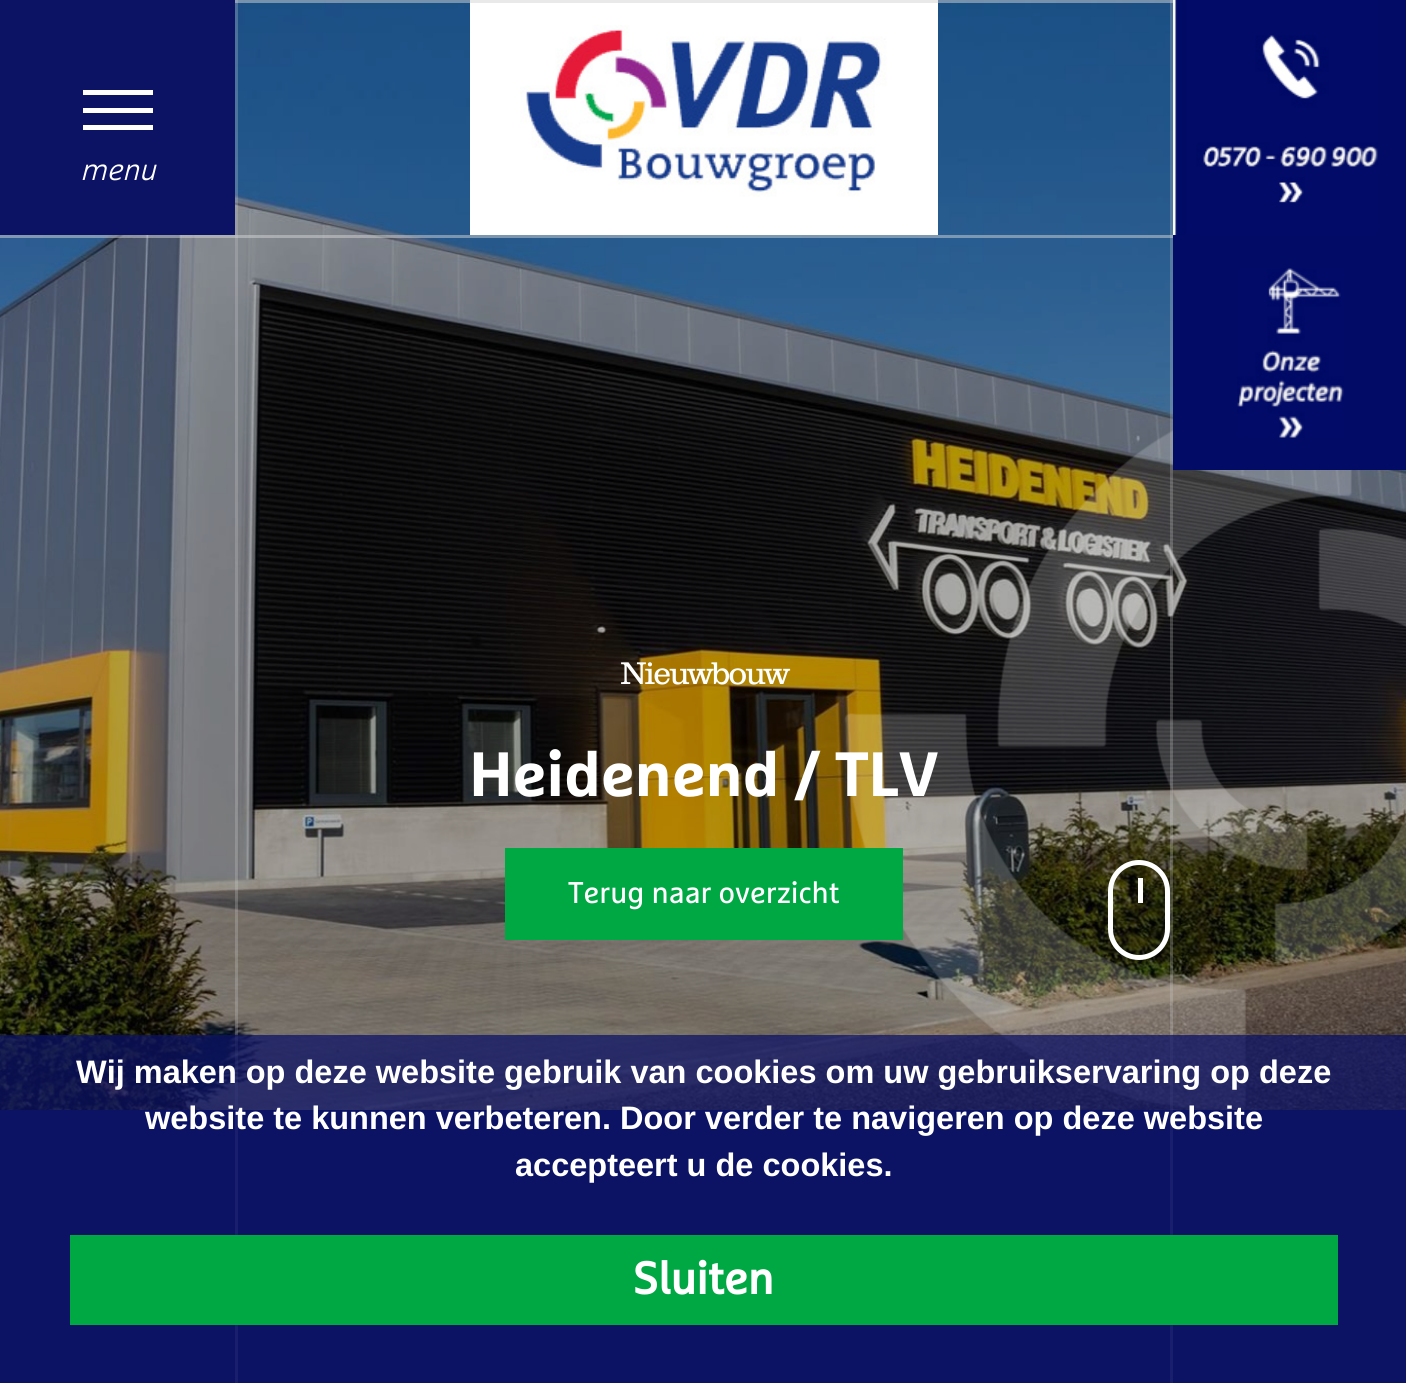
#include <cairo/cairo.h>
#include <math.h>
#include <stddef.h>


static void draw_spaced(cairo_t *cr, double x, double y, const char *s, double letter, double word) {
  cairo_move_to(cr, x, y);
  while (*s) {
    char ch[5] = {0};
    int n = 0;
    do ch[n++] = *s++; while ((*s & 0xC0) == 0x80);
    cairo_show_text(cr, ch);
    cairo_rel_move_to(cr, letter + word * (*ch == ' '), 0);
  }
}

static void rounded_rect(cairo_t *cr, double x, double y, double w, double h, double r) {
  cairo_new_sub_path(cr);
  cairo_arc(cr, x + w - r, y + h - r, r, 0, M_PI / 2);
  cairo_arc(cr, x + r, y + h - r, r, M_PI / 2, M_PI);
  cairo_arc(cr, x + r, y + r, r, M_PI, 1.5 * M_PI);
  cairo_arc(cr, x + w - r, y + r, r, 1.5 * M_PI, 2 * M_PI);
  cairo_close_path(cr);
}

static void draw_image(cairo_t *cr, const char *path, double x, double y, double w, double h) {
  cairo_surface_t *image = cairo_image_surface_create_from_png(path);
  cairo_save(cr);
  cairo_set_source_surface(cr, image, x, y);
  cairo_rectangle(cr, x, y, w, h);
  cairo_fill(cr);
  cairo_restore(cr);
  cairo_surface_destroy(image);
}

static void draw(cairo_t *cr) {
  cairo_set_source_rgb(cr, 12 / 255.0, 19 / 255.0, 101 / 255.0);
  cairo_paint(cr);
  draw_image(cr, "images/4.png", 0, 0, 1406, 1110);
  cairo_set_source_rgba(cr, 212 / 255.0, 212 / 255.0, 212 / 255.0, 0.25);
  cairo_rectangle(cr, 235, 0, 3, 1383);
  cairo_fill(cr);
  draw_image(cr, "images/5.png", 844, 430, 562, 680);
  cairo_rectangle(cr, 1170, 0, 3, 1383);
  cairo_fill(cr);
  cairo_set_source_rgb(cr, 1, 1, 1);
  cairo_rectangle(cr, 470, 0, 468, 235);
  cairo_fill(cr);
  cairo_set_source_rgba(cr, 212 / 255.0, 212 / 255.0, 212 / 255.0, 0.5);
  cairo_rectangle(cr, 235, 0, 938, 3);
  cairo_fill(cr);
  cairo_set_source_rgb(cr, 12 / 255.0, 19 / 255.0, 101 / 255.0);
  cairo_rectangle(cr, 0, 0, 235, 235);
  cairo_fill(cr);
  cairo_set_source_rgb(cr, 1, 1, 1);
  cairo_rectangle(cr, 83, 108, 70, 5);
  cairo_fill(cr);
  cairo_rectangle(cr, 83, 90, 70, 5);
  cairo_fill(cr);
  cairo_rectangle(cr, 83, 125, 70, 5);
  cairo_fill(cr);
  draw_image(cr, "images/1.png", 520, 25, 367, 172);
  cairo_set_source_rgb(cr, 2 / 255.0, 11 / 255.0, 102 / 255.0);
  cairo_rectangle(cr, 1378, 0, 28, 235);
  cairo_fill(cr);
  draw_image(cr, "images/2.png", 1173, 0, 205, 235);
  cairo_rectangle(cr, 1173, 235, 233, 235);
  cairo_fill(cr);
  draw_image(cr, "images/3.png", 1237, 268, 107, 170);
  cairo_set_source_rgba(cr, 212 / 255.0, 212 / 255.0, 212 / 255.0, 0.5);
  cairo_rectangle(cr, 0, 235, 1173, 3);
  cairo_fill(cr);
  cairo_set_source_rgb(cr, 0, 168 / 255.0, 68 / 255.0);
  cairo_rectangle(cr, 505, 848, 398, 92);
  cairo_fill(cr);
  rounded_rect(cr, 1110.5, 862.5, 57, 95, 28.5);
  cairo_set_source_rgb(cr, 1, 1, 1);
  cairo_set_line_width(cr, 5);
  cairo_stroke(cr);
  cairo_rectangle(cr, 1138, 878, 5, 25);
  cairo_fill(cr);
  cairo_set_source_rgba(cr, 12 / 255.0, 19 / 255.0, 101 / 255.0, 0.75);
  cairo_rectangle(cr, 0, 1035, 1406, 348);
  cairo_fill(cr);
  cairo_set_source_rgb(cr, 0, 168 / 255.0, 68 / 255.0);
  cairo_rectangle(cr, 70, 1235, 1268, 90);
  cairo_fill(cr);
  cairo_select_font_face(cr, "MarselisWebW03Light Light", CAIRO_FONT_SLANT_ITALIC, CAIRO_FONT_WEIGHT_NORMAL);
  cairo_set_font_size(cr, 30);
  cairo_set_source_rgb(cr, 1, 1, 1);
  cairo_move_to(cr, 80, 180);
  cairo_show_text(cr, "menu");
  cairo_select_font_face(cr, "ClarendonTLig", CAIRO_FONT_SLANT_NORMAL, CAIRO_FONT_WEIGHT_NORMAL);
  cairo_set_font_size(cr, 32.5);
  draw_spaced(cr, 620, 684, "Nieuwbouw", -2.5, 0);
  cairo_select_font_face(cr, "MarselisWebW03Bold", CAIRO_FONT_SLANT_NORMAL, CAIRO_FONT_WEIGHT_BOLD);
  cairo_set_font_size(cr, 62.5);
  cairo_move_to(cr, 469, 796);
  cairo_show_text(cr, "Heidenend / TLV");
  cairo_select_font_face(cr, "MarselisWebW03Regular", CAIRO_FONT_SLANT_NORMAL, CAIRO_FONT_WEIGHT_NORMAL);
  cairo_set_font_size(cr, 30);
  cairo_move_to(cr, 568, 903);
  cairo_show_text(cr, "Terug naar overzicht");
  cairo_select_font_face(cr, "Liberation Sans", CAIRO_FONT_SLANT_NORMAL, CAIRO_FONT_WEIGHT_BOLD);
  cairo_set_font_size(cr, 32.5);
  cairo_move_to(cr, 76, 1083);
  cairo_show_text(cr, "Wij maken op deze website gebruik van cookies om uw gebruikservaring op deze");
  cairo_move_to(cr, 145, 1129);
  cairo_show_text(cr, "website te kunnen verbeteren. Door verder te navigeren op deze website");
  cairo_move_to(cr, 515, 1176);
  cairo_show_text(cr, "accepteert u de cookies.");
  cairo_select_font_face(cr, "MarselisWebW03Regular", CAIRO_FONT_SLANT_NORMAL, CAIRO_FONT_WEIGHT_BOLD);
  cairo_set_font_size(cr, 45);
  cairo_move_to(cr, 633, 1294);
  cairo_show_text(cr, "Sluiten");
}

int main(void) {
  cairo_surface_t *surface = cairo_image_surface_create(CAIRO_FORMAT_RGB24, 1406, 1383);
  cairo_t *cr = cairo_create(surface);
  cairo_font_options_t *options = cairo_font_options_create();
  cairo_font_options_set_hint_metrics(options, CAIRO_HINT_METRICS_OFF);
  cairo_font_options_set_hint_style(options, CAIRO_HINT_STYLE_NONE);
  cairo_set_font_options(cr, options);
  cairo_set_miter_limit(cr, 4);
  draw(cr);
  cairo_surface_write_to_png(surface, "out.png");
  cairo_font_options_destroy(options);
  cairo_destroy(cr);
  cairo_surface_destroy(surface);
  return 0;
}
